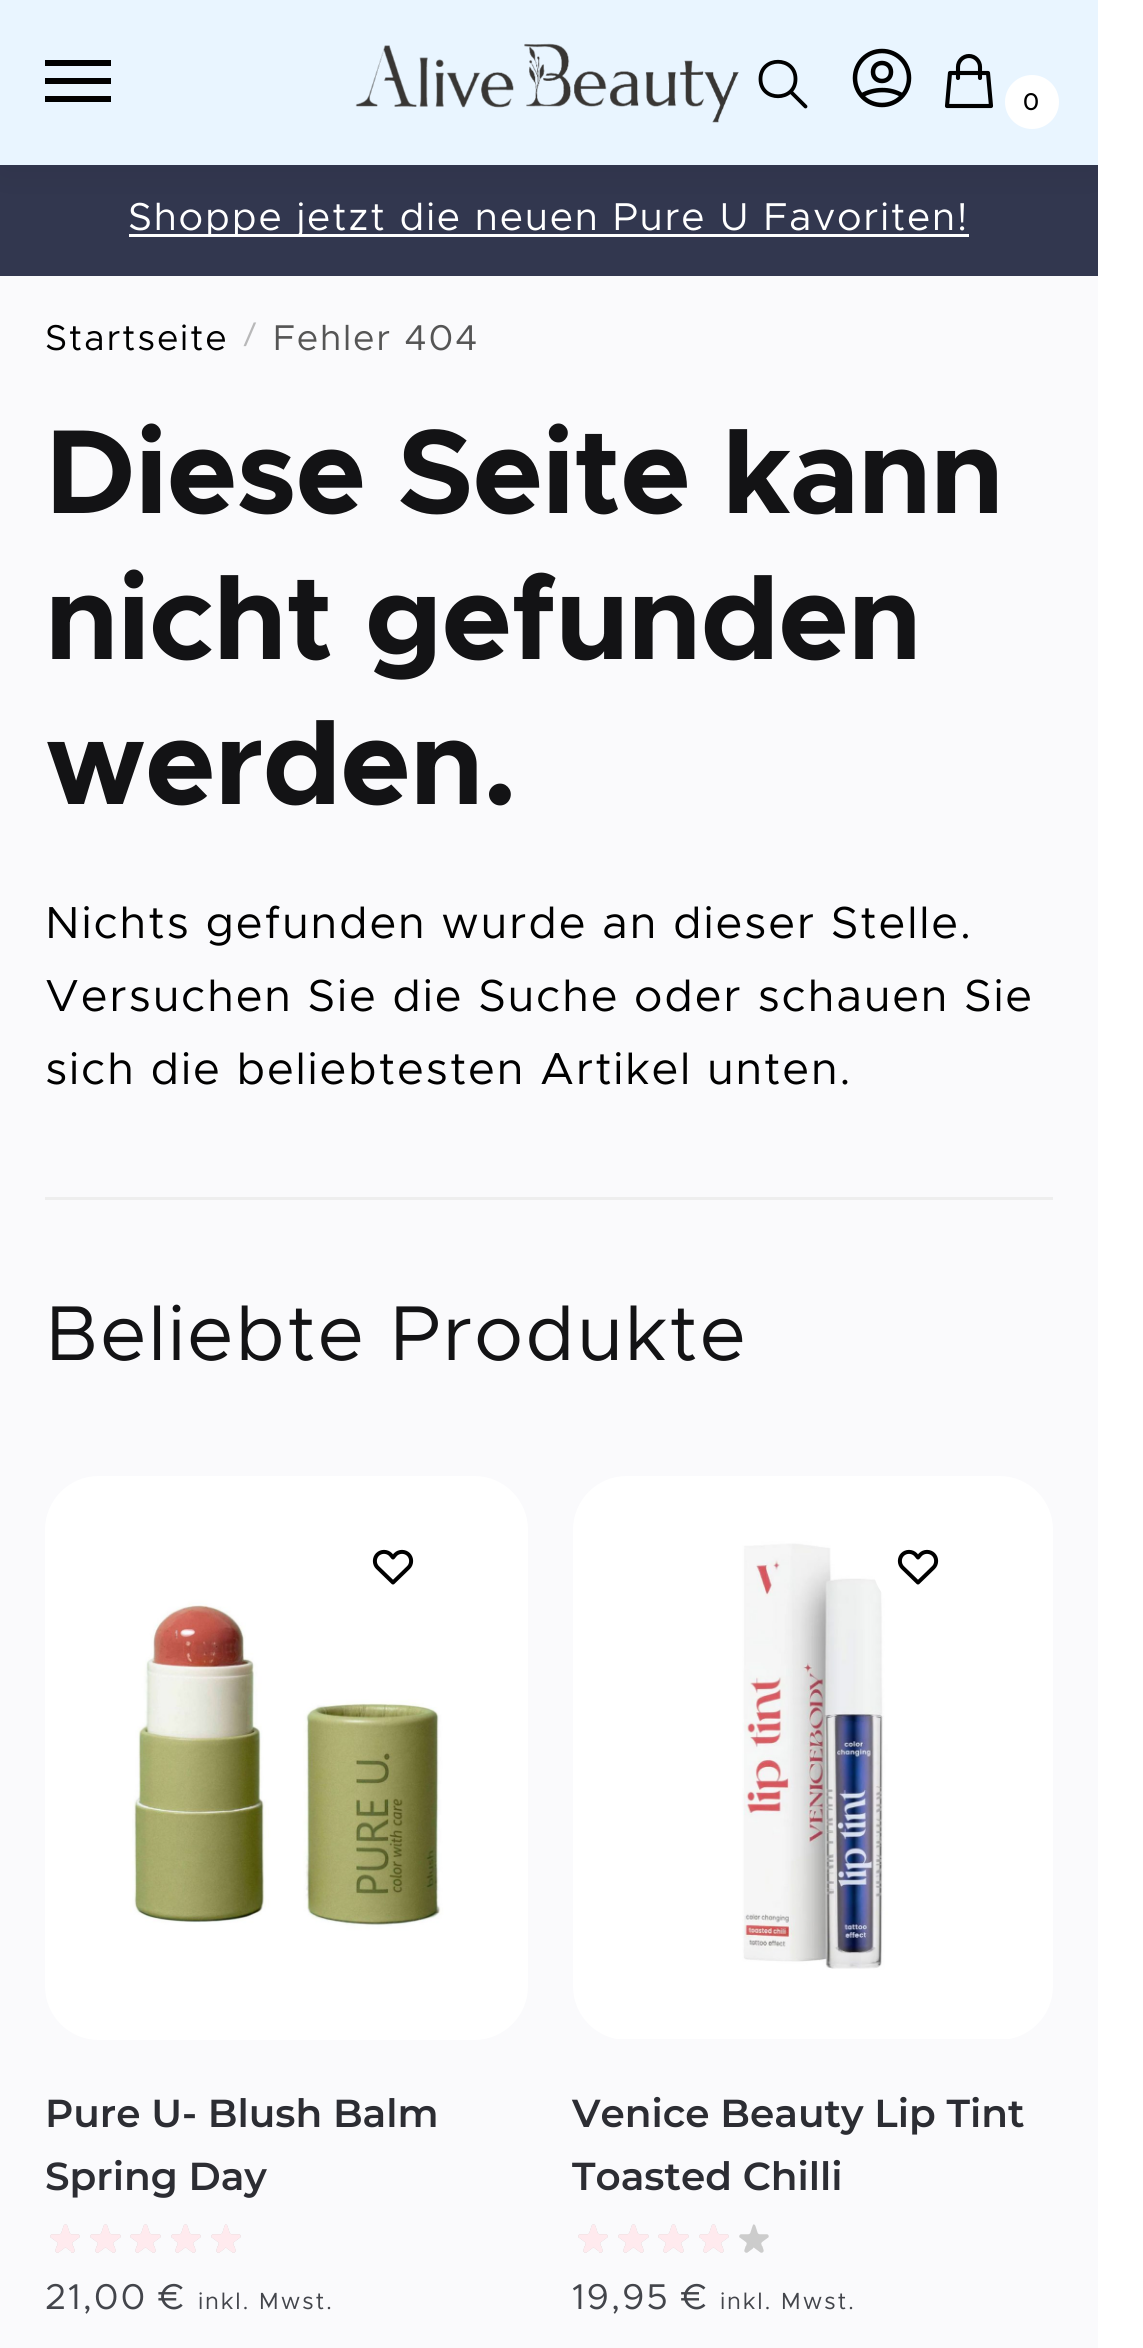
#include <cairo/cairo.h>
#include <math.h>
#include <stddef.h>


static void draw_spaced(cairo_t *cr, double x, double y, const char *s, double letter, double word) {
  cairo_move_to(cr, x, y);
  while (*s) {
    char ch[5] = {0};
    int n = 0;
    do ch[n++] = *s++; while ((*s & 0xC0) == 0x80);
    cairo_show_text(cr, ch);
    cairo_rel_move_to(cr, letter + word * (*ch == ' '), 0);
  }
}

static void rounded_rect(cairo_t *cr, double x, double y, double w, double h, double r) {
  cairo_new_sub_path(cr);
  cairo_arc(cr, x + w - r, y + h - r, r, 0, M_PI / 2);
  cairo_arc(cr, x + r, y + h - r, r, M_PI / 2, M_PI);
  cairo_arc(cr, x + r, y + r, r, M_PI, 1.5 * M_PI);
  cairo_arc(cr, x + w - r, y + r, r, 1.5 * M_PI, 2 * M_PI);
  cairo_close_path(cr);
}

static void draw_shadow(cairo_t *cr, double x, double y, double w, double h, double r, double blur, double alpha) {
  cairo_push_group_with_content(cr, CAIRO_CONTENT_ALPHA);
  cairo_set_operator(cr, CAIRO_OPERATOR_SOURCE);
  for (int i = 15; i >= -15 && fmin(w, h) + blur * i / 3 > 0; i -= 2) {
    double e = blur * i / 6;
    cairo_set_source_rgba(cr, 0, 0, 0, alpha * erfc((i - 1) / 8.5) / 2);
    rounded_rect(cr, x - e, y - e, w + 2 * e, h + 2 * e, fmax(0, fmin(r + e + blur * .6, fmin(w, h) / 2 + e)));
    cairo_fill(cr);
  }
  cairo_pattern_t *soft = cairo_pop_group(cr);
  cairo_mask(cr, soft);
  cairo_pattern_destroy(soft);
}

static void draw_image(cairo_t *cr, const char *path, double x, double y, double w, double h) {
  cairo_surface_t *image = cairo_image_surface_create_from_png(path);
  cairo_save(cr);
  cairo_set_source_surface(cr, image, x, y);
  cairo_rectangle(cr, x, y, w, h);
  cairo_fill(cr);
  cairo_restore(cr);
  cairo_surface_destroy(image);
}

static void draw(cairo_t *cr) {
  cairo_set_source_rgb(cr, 250 / 255.0, 250 / 255.0, 252 / 255.0);
  cairo_paint(cr);
  cairo_set_source_rgb(cr, 50 / 255.0, 55 / 255.0, 79 / 255.0);
  cairo_rectangle(cr, 0, 165, 1098, 111);
  cairo_fill(cr);
  cairo_set_source_rgb(cr, 1, 1, 1);
  cairo_rectangle(cr, 129, 234, 840, 3);
  cairo_fill(cr);
  cairo_set_source_rgb(cr, 0, 0, 0);
  draw_shadow(cr, 0, 3, 1098, 165, 0, 22.5, 0.08);
  cairo_set_source_rgb(cr, 233 / 255.0, 245 / 255.0, 1);
  cairo_rectangle(cr, 0, 0, 1098, 165);
  cairo_fill(cr);
  cairo_set_source_rgb(cr, 0, 0, 0);
  cairo_rectangle(cr, 45, 60, 66, 6);
  cairo_fill(cr);
  cairo_rectangle(cr, 45, 78, 66, 6);
  cairo_fill(cr);
  cairo_rectangle(cr, 45, 96, 66, 6);
  cairo_fill(cr);
  draw_image(cr, "images/1.png", 355, 43, 384, 80);
  cairo_new_path(cr);
  cairo_move_to(cr, 805.5, 106.5);
  cairo_line_to(cr, 790.5, 91.5);
  cairo_move_to(cr, 795.5, 79);
  cairo_curve_to(cr, 795.5, 102, 760.5, 102, 760.5, 79);
  cairo_curve_to(cr, 760.5, 56, 795.5, 56, 795.5, 79);
  cairo_close_path(cr);
  cairo_set_line_width(cr, 3.8);
  cairo_set_line_cap(cr, CAIRO_LINE_CAP_ROUND);
  cairo_set_line_join(cr, CAIRO_LINE_JOIN_ROUND);
  cairo_stroke(cr);
  cairo_new_path(cr);
  cairo_move_to(cr, 861.5, 95.5);
  cairo_curve_to(cr, 874, 88.5, 890, 88, 902.5, 95.5);
  cairo_move_to(cr, 891, 72);
  cairo_curve_to(cr, 891, 84, 873, 84, 873, 72);
  cairo_curve_to(cr, 873, 60, 891, 60, 891, 72);
  cairo_close_path(cr);
  cairo_move_to(cr, 909, 78);
  cairo_curve_to(cr, 909, 93, 897, 105, 882, 105);
  cairo_curve_to(cr, 867, 105, 855, 93, 855, 78);
  cairo_curve_to(cr, 855, 63, 867, 51, 882, 51);
  cairo_curve_to(cr, 897, 51, 909, 63, 909, 78);
  cairo_close_path(cr);
  cairo_set_line_width(cr, 4.5);
  cairo_stroke(cr);
  cairo_new_path(cr);
  cairo_move_to(cr, 980, 78);
  cairo_line_to(cr, 980, 67);
  cairo_curve_to(cr, 980, 61, 975, 56, 969, 56);
  cairo_curve_to(cr, 963, 56, 958, 61, 958, 67);
  cairo_line_to(cr, 958, 78);
  cairo_move_to(cr, 950, 73);
  cairo_line_to(cr, 988, 73);
  cairo_line_to(cr, 991, 106);
  cairo_line_to(cr, 947, 106);
  cairo_close_path(cr);
  cairo_set_line_width(cr, 4.1);
  cairo_stroke(cr);
  cairo_set_source_rgb(cr, 1, 1, 1);
  cairo_arc(cr, 1032, 102, 28.5, 0, 2 * M_PI);
  cairo_fill_preserve(cr);
  cairo_set_source_rgb(cr, 233 / 255.0, 245 / 255.0, 1);
  cairo_set_line_width(cr, 3);
  cairo_set_line_cap(cr, CAIRO_LINE_CAP_BUTT);
  cairo_set_line_join(cr, CAIRO_LINE_JOIN_MITER);
  cairo_stroke(cr);
  cairo_set_source_rgb(cr, 1, 1, 1);
  cairo_rectangle(cr, 1098, 0, 45, 2348);
  cairo_fill(cr);
  cairo_set_source_rgb(cr, 238 / 255.0, 238 / 255.0, 238 / 255.0);
  cairo_rectangle(cr, 45, 1197, 1008, 3);
  cairo_fill(cr);
  draw_image(cr, "images/2.png", 45, 1476, 483, 564);
  cairo_new_path(cr);
  cairo_move_to(cr, 377.5, 1554.5);
  cairo_curve_to(cr, 374, 1558, 374, 1564, 377.5, 1567.5);
  cairo_line_to(cr, 393, 1582.5);
  cairo_line_to(cr, 408.5, 1567.5);
  cairo_curve_to(cr, 412, 1564, 412, 1558, 408.5, 1554.5);
  cairo_curve_to(cr, 405, 1551, 399, 1551, 395.5, 1554.5);
  cairo_line_to(cr, 393, 1557.5);
  cairo_line_to(cr, 390.5, 1554.5);
  cairo_curve_to(cr, 387, 1551, 381, 1551, 377.5, 1554.5);
  cairo_close_path(cr);
  cairo_set_source_rgb(cr, 0, 0, 0);
  cairo_set_line_width(cr, 4);
  cairo_set_line_cap(cr, CAIRO_LINE_CAP_ROUND);
  cairo_set_line_join(cr, CAIRO_LINE_JOIN_ROUND);
  cairo_stroke(cr);
  draw_image(cr, "images/3.png", 50, 2224, 191, 29);
  draw_image(cr, "images/4.png", 50, 2224, 191, 29);
  draw_image(cr, "images/5.png", 573, 1476, 480, 563);
  cairo_set_source_rgb(cr, 1, 1, 1);
  cairo_arc(cr, 918, 1566, 45, 0, 2 * M_PI);
  cairo_fill(cr);
  cairo_new_path(cr);
  cairo_move_to(cr, 902.5, 1554.5);
  cairo_curve_to(cr, 899, 1558, 899, 1564, 902.5, 1567.5);
  cairo_line_to(cr, 918, 1582.5);
  cairo_line_to(cr, 933.5, 1567.5);
  cairo_curve_to(cr, 937, 1564, 937, 1558, 933.5, 1554.5);
  cairo_curve_to(cr, 930, 1551, 924, 1551, 920.5, 1554.5);
  cairo_line_to(cr, 918, 1557.5);
  cairo_line_to(cr, 915.5, 1554.5);
  cairo_curve_to(cr, 912, 1551, 906, 1551, 902.5, 1554.5);
  cairo_close_path(cr);
  cairo_set_source_rgb(cr, 0, 0, 0);
  cairo_stroke(cr);
  draw_image(cr, "images/3.png", 578, 2224, 191, 29);
  draw_image(cr, "images/6.png", 578, 2224, 151, 29);
  cairo_select_font_face(cr, "Montserrat Medium", CAIRO_FONT_SLANT_NORMAL, CAIRO_FONT_WEIGHT_NORMAL);
  cairo_set_font_size(cr, 24);
  draw_spaced(cr, 1023, 110, "0", 1.8, 0);
  cairo_select_font_face(cr, "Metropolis", CAIRO_FONT_SLANT_NORMAL, CAIRO_FONT_WEIGHT_NORMAL);
  cairo_set_font_size(cr, 39);
  cairo_set_source_rgb(cr, 1, 1, 1);
  draw_spaced(cr, 128, 230, "Shoppe jetzt die neuen Pure U Favoriten!", 1.8, 0);
  cairo_set_font_size(cr, 36);
  cairo_set_source_rgb(cr, 0, 0, 0);
  draw_spaced(cr, 45, 350, "Startseite", 1.8, 0);
  cairo_set_font_size(cr, 29);
  cairo_set_source_rgb(cr, 184 / 255.0, 184 / 255.0, 185 / 255.0);
  draw_spaced(cr, 244, 344, "/", 1.8, 0);
  cairo_set_font_size(cr, 36);
  cairo_set_source_rgb(cr, 85 / 255.0, 85 / 255.0, 85 / 255.0);
  draw_spaced(cr, 273, 350, "Fehler 404", 1.8, 0);
  cairo_select_font_face(cr, "Metropolis", CAIRO_FONT_SLANT_NORMAL, CAIRO_FONT_WEIGHT_BOLD);
  cairo_set_font_size(cr, 120);
  cairo_set_source_rgb(cr, 19 / 255.0, 19 / 255.0, 21 / 255.0);
  draw_spaced(cr, 45, 513, "Diese Seite kann", -1.25, 0);
  draw_spaced(cr, 45, 659, "nicht gefunden", -1.25, 0);
  draw_spaced(cr, 45, 804, "werden.", -1.25, 0);
  cairo_select_font_face(cr, "Metropolis", CAIRO_FONT_SLANT_NORMAL, CAIRO_FONT_WEIGHT_NORMAL);
  cairo_set_font_size(cr, 45);
  cairo_set_source_rgb(cr, 0, 0, 0);
  draw_spaced(cr, 45, 938, "Nichts gefunden wurde an dieser Stelle.", 1.8, 0);
  draw_spaced(cr, 45, 1011, "Versuchen Sie die Suche oder schauen Sie", 1.8, 0);
  draw_spaced(cr, 45, 1084, "sich die beliebtesten Artikel unten.", 1.8, 0);
  cairo_set_font_size(cr, 78);
  cairo_set_source_rgb(cr, 19 / 255.0, 19 / 255.0, 21 / 255.0);
  draw_spaced(cr, 45, 1360, "Beliebte Produkte", 1.8, 0);
  cairo_select_font_face(cr, "Montserrat SemiBold", CAIRO_FONT_SLANT_NORMAL, CAIRO_FONT_WEIGHT_NORMAL);
  cairo_set_font_size(cr, 39);
  cairo_set_source_rgb(cr, 44 / 255.0, 45 / 255.0, 51 / 255.0);
  cairo_move_to(cr, 45, 2127);
  cairo_show_text(cr, "Pure U- Blush Balm");
  cairo_move_to(cr, 45, 2190);
  cairo_show_text(cr, "Spring Day");
  cairo_select_font_face(cr, "Metropolis", CAIRO_FONT_SLANT_NORMAL, CAIRO_FONT_WEIGHT_NORMAL);
  cairo_set_font_size(cr, 36);
  cairo_set_source_rgb(cr, 67 / 255.0, 69 / 255.0, 75 / 255.0);
  draw_spaced(cr, 45, 2309, "21,00 €", 1.8, 0);
  cairo_set_font_size(cr, 23.5);
  draw_spaced(cr, 198, 2309, "inkl. Mwst.", 1.8, 0);
  cairo_select_font_face(cr, "Montserrat SemiBold", CAIRO_FONT_SLANT_NORMAL, CAIRO_FONT_WEIGHT_NORMAL);
  cairo_set_font_size(cr, 39);
  cairo_set_source_rgb(cr, 44 / 255.0, 45 / 255.0, 51 / 255.0);
  cairo_move_to(cr, 572, 2127);
  cairo_show_text(cr, "Venice Beauty Lip Tint");
  cairo_move_to(cr, 572, 2190);
  cairo_show_text(cr, "Toasted Chilli");
  cairo_select_font_face(cr, "Metropolis", CAIRO_FONT_SLANT_NORMAL, CAIRO_FONT_WEIGHT_NORMAL);
  cairo_set_font_size(cr, 36);
  cairo_set_source_rgb(cr, 67 / 255.0, 69 / 255.0, 75 / 255.0);
  draw_spaced(cr, 572, 2309, "19,95 €", 1.8, 0);
  cairo_set_font_size(cr, 23.5);
  draw_spaced(cr, 720, 2309, "inkl. Mwst.", 1.8, 0);
}

int main(void) {
  cairo_surface_t *surface = cairo_image_surface_create(CAIRO_FORMAT_RGB24, 1143, 2348);
  cairo_t *cr = cairo_create(surface);
  cairo_font_options_t *options = cairo_font_options_create();
  cairo_font_options_set_hint_metrics(options, CAIRO_HINT_METRICS_OFF);
  cairo_font_options_set_hint_style(options, CAIRO_HINT_STYLE_NONE);
  cairo_set_font_options(cr, options);
  cairo_set_miter_limit(cr, 4);
  draw(cr);
  cairo_surface_write_to_png(surface, "out.png");
  cairo_font_options_destroy(options);
  cairo_destroy(cr);
  cairo_surface_destroy(surface);
  return 0;
}
